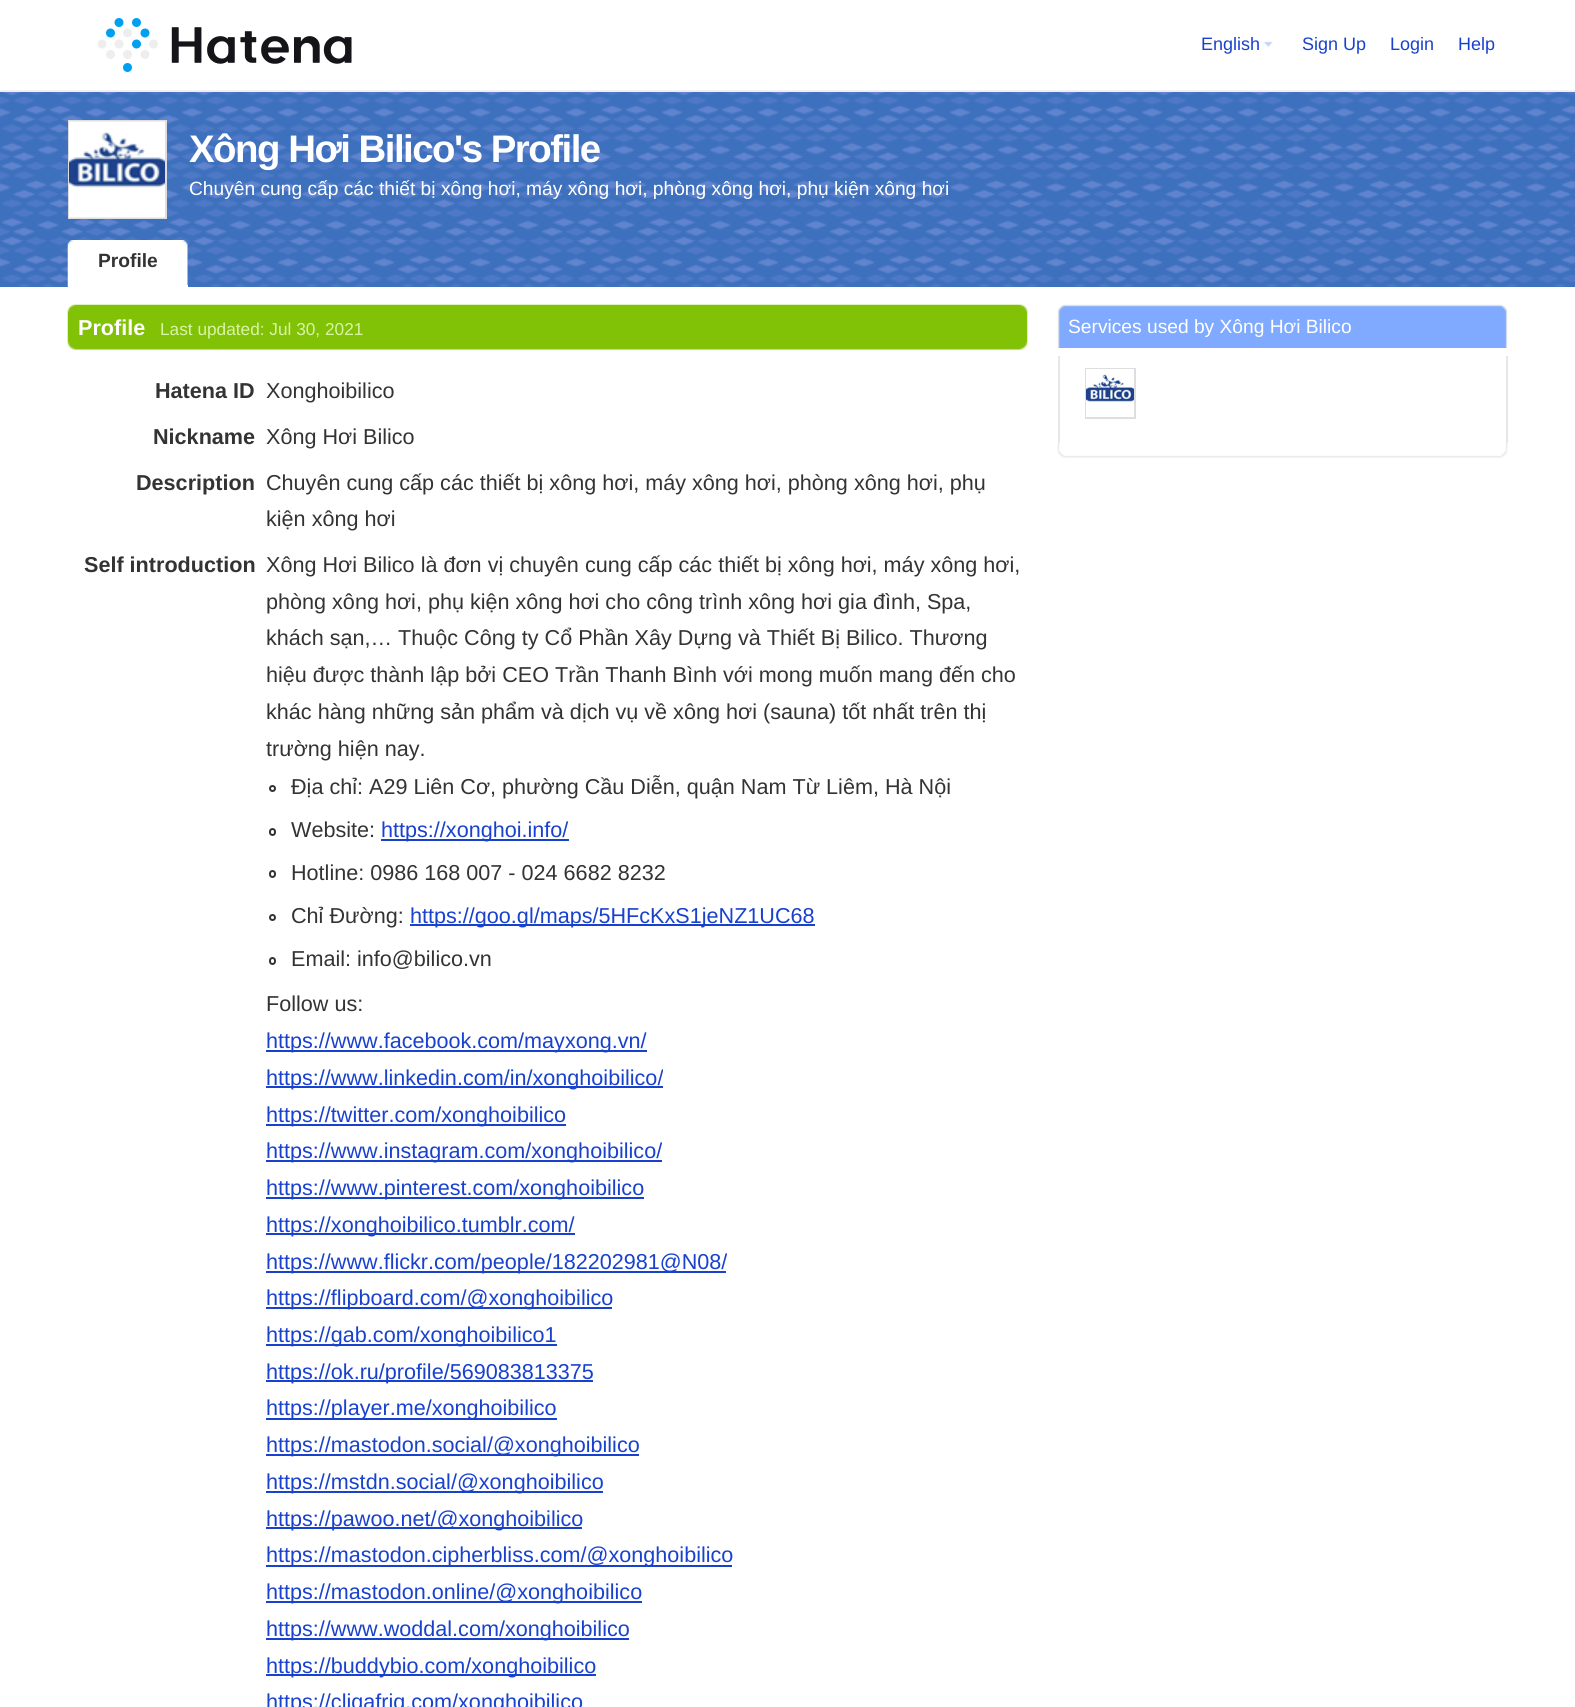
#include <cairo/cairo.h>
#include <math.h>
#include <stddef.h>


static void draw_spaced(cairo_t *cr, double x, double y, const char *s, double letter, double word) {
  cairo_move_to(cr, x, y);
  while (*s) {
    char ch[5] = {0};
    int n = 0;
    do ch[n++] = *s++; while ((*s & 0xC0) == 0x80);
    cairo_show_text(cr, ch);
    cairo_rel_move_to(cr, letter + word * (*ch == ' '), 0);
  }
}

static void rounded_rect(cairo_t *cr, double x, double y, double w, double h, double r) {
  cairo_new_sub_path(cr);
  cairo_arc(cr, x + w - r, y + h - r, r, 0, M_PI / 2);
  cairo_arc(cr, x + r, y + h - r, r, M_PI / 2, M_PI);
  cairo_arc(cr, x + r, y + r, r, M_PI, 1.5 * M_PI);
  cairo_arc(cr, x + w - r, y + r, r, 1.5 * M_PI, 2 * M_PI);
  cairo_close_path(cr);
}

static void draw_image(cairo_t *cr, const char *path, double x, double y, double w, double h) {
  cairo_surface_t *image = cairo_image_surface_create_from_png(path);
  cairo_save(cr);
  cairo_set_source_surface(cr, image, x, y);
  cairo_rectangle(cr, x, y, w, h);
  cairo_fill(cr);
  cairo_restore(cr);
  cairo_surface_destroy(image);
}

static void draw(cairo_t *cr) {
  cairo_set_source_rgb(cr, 1, 1, 1);
  cairo_paint(cr);
  cairo_set_source_rgb(cr, 240 / 255.0, 240 / 255.0, 240 / 255.0);
  cairo_rectangle(cr, 0, 90, 1575, 2);
  cairo_fill(cr);
  draw_image(cr, "images/1.png", 98, 18, 254, 54);
  draw_image(cr, "images/2.png", 1264, 41, 9, 6);
  cairo_set_source_rgb(cr, 61 / 255.0, 112 / 255.0, 189 / 255.0);
  cairo_rectangle(cr, 0, 286, 1575, 1);
  cairo_fill(cr);
  draw_image(cr, "images/3.png", 0, 92, 1575, 195);
  cairo_rectangle(cr, 69, 121, 97, 97);
  cairo_set_source_rgb(cr, 222 / 255.0, 222 / 255.0, 222 / 255.0);
  cairo_stroke(cr);
  draw_image(cr, "images/4.png", 69, 121, 96, 97);
  draw_image(cr, "images/5.png", 67, 240, 121, 47);
  cairo_set_source_rgb(cr, 1, 1, 1);
  cairo_rectangle(cr, 68, 285, 120, 2);
  cairo_fill(cr);
  draw_image(cr, "images/6.png", 67, 304, 961, 46);
  cairo_arc(cr, 272.5, 788.5, 2.5, 0, 2 * M_PI);
  cairo_set_source_rgb(cr, 51 / 255.0, 51 / 255.0, 51 / 255.0);
  cairo_stroke(cr);
  rounded_rect(cr, 270, 829, 5, 6, 2.5);
  cairo_stroke(cr);
  cairo_set_source_rgb(cr, 24 / 255.0, 65 / 255.0, 206 / 255.0);
  cairo_rectangle(cr, 381, 839, 188, 2);
  cairo_fill(cr);
  rounded_rect(cr, 270, 871, 5, 6, 2.5);
  cairo_set_source_rgb(cr, 51 / 255.0, 51 / 255.0, 51 / 255.0);
  cairo_stroke(cr);
  cairo_arc(cr, 272.5, 917.5, 2.5, 0, 2 * M_PI);
  cairo_stroke(cr);
  cairo_set_source_rgb(cr, 24 / 255.0, 65 / 255.0, 206 / 255.0);
  cairo_rectangle(cr, 410, 924, 405, 2);
  cairo_fill(cr);
  rounded_rect(cr, 270, 958, 5, 6, 2.5);
  cairo_set_source_rgb(cr, 51 / 255.0, 51 / 255.0, 51 / 255.0);
  cairo_stroke(cr);
  cairo_set_source_rgb(cr, 24 / 255.0, 65 / 255.0, 206 / 255.0);
  cairo_rectangle(cr, 266, 1050, 381, 2);
  cairo_fill(cr);
  cairo_rectangle(cr, 266, 1086, 397, 2);
  cairo_fill(cr);
  cairo_rectangle(cr, 266, 1124, 300, 2);
  cairo_fill(cr);
  cairo_rectangle(cr, 266, 1160, 396, 2);
  cairo_fill(cr);
  cairo_rectangle(cr, 266, 1197, 378, 2);
  cairo_fill(cr);
  cairo_rectangle(cr, 266, 1233, 309, 2);
  cairo_fill(cr);
  cairo_rectangle(cr, 266, 1271, 460, 2);
  cairo_fill(cr);
  cairo_rectangle(cr, 266, 1307, 346, 2);
  cairo_fill(cr);
  cairo_rectangle(cr, 266, 1344, 291, 2);
  cairo_fill(cr);
  cairo_rectangle(cr, 266, 1380, 327, 2);
  cairo_fill(cr);
  cairo_rectangle(cr, 266, 1418, 291, 2);
  cairo_fill(cr);
  cairo_rectangle(cr, 266, 1454, 373, 2);
  cairo_fill(cr);
  cairo_rectangle(cr, 266, 1491, 337, 2);
  cairo_fill(cr);
  cairo_rectangle(cr, 266, 1527, 316, 2);
  cairo_fill(cr);
  cairo_rectangle(cr, 266, 1565, 466, 2);
  cairo_fill(cr);
  cairo_rectangle(cr, 266, 1601, 376, 2);
  cairo_fill(cr);
  cairo_rectangle(cr, 266, 1638, 363, 2);
  cairo_fill(cr);
  cairo_rectangle(cr, 266, 1674, 330, 2);
  cairo_fill(cr);
  draw_image(cr, "images/7.png", 1057, 442, 451, 16);
  draw_image(cr, "images/8.png", 1057, 304, 451, 44);
  cairo_set_source_rgb(cr, 231 / 255.0, 231 / 255.0, 231 / 255.0);
  cairo_rectangle(cr, 1506, 356, 2, 87);
  cairo_fill(cr);
  cairo_rectangle(cr, 1058, 356, 2, 87);
  cairo_fill(cr);
  cairo_rectangle(cr, 1086, 369, 49, 49);
  cairo_set_source_rgb(cr, 222 / 255.0, 222 / 255.0, 222 / 255.0);
  cairo_stroke(cr);
  draw_image(cr, "images/9.png", 1086, 369, 48, 48);
  cairo_select_font_face(cr, "Liberation Sans", CAIRO_FONT_SLANT_NORMAL, CAIRO_FONT_WEIGHT_NORMAL);
  cairo_set_font_size(cr, 18);
  cairo_set_source_rgb(cr, 24 / 255.0, 65 / 255.0, 206 / 255.0);
  cairo_move_to(cr, 1201, 50);
  cairo_show_text(cr, "English");
  cairo_move_to(cr, 1302, 50);
  cairo_show_text(cr, "Sign Up");
  cairo_move_to(cr, 1390, 50);
  cairo_show_text(cr, "Login");
  cairo_move_to(cr, 1458, 50);
  cairo_show_text(cr, "Help");
  cairo_select_font_face(cr, "Liberation Sans", CAIRO_FONT_SLANT_NORMAL, CAIRO_FONT_WEIGHT_BOLD);
  cairo_set_font_size(cr, 38.4);
  cairo_set_source_rgb(cr, 1, 1, 1);
  draw_spaced(cr, 189, 162, "Xông Hơi Bilico's Profile", -1.5, 0);
  cairo_select_font_face(cr, "Liberation Sans", CAIRO_FONT_SLANT_NORMAL, CAIRO_FONT_WEIGHT_NORMAL);
  cairo_set_font_size(cr, 19.2);
  cairo_move_to(cr, 189, 195);
  cairo_show_text(cr, "Chuyên cung cấp các thiết bị xông hơi, máy xông hơi, phòng xông hơi, phụ kiện xông hơi");
  cairo_select_font_face(cr, "Liberation Sans", CAIRO_FONT_SLANT_NORMAL, CAIRO_FONT_WEIGHT_BOLD);
  cairo_set_source_rgb(cr, 51 / 255.0, 51 / 255.0, 51 / 255.0);
  cairo_move_to(cr, 98, 267);
  cairo_show_text(cr, "Profile");
  cairo_set_font_size(cr, 21.6);
  cairo_set_source_rgb(cr, 1, 1, 1);
  cairo_move_to(cr, 78, 335);
  cairo_show_text(cr, "Profile");
  cairo_select_font_face(cr, "Liberation Sans", CAIRO_FONT_SLANT_NORMAL, CAIRO_FONT_WEIGHT_NORMAL);
  cairo_set_font_size(cr, 17.25);
  cairo_set_source_rgb(cr, 217 / 255.0, 244 / 255.0, 166 / 255.0);
  cairo_move_to(cr, 160, 335);
  cairo_show_text(cr, "Last updated: Jul 30, 2021");
  cairo_select_font_face(cr, "Liberation Sans", CAIRO_FONT_SLANT_NORMAL, CAIRO_FONT_WEIGHT_BOLD);
  cairo_set_font_size(cr, 21.6);
  cairo_set_source_rgb(cr, 51 / 255.0, 51 / 255.0, 51 / 255.0);
  cairo_move_to(cr, 155, 398);
  cairo_show_text(cr, "Hatena ID");
  cairo_select_font_face(cr, "Liberation Sans", CAIRO_FONT_SLANT_NORMAL, CAIRO_FONT_WEIGHT_NORMAL);
  cairo_move_to(cr, 266, 398);
  cairo_show_text(cr, "Xonghoibilico");
  cairo_select_font_face(cr, "Liberation Sans", CAIRO_FONT_SLANT_NORMAL, CAIRO_FONT_WEIGHT_BOLD);
  cairo_move_to(cr, 153, 444);
  cairo_show_text(cr, "Nickname");
  cairo_select_font_face(cr, "Liberation Sans", CAIRO_FONT_SLANT_NORMAL, CAIRO_FONT_WEIGHT_NORMAL);
  cairo_move_to(cr, 266, 444);
  cairo_show_text(cr, "Xông Hơi Bilico");
  cairo_select_font_face(cr, "Liberation Sans", CAIRO_FONT_SLANT_NORMAL, CAIRO_FONT_WEIGHT_BOLD);
  cairo_move_to(cr, 136, 490);
  cairo_show_text(cr, "Description");
  cairo_select_font_face(cr, "Liberation Sans", CAIRO_FONT_SLANT_NORMAL, CAIRO_FONT_WEIGHT_NORMAL);
  cairo_move_to(cr, 266, 490);
  cairo_show_text(cr, "Chuyên cung cấp các thiết bị xông hơi, máy xông hơi, phòng xông hơi, phụ");
  cairo_move_to(cr, 266, 526);
  cairo_show_text(cr, "kiện xông hơi");
  cairo_select_font_face(cr, "Liberation Sans", CAIRO_FONT_SLANT_NORMAL, CAIRO_FONT_WEIGHT_BOLD);
  cairo_move_to(cr, 84, 572);
  cairo_show_text(cr, "Self introduction");
  cairo_select_font_face(cr, "Liberation Sans", CAIRO_FONT_SLANT_NORMAL, CAIRO_FONT_WEIGHT_NORMAL);
  cairo_move_to(cr, 266, 572);
  cairo_show_text(cr, "Xông Hơi Bilico là đơn vị chuyên cung cấp các thiết bị xông hơi, máy xông hơi,");
  cairo_move_to(cr, 266, 609);
  cairo_show_text(cr, "phòng xông hơi, phụ kiện xông hơi cho công trình xông hơi gia đình, Spa,");
  cairo_move_to(cr, 266, 645);
  cairo_show_text(cr, "khách sạn,… Thuộc Công ty Cổ Phần Xây Dựng và Thiết Bị Bilico. Thương");
  cairo_move_to(cr, 266, 682);
  cairo_show_text(cr, "hiệu được thành lập bởi CEO Trần Thanh Bình với mong muốn mang đến cho");
  cairo_move_to(cr, 266, 719);
  cairo_show_text(cr, "khác hàng những sản phẩm và dịch vụ về xông hơi (sauna) tốt nhất trên thị");
  cairo_move_to(cr, 266, 756);
  cairo_show_text(cr, "trường hiện nay.");
  cairo_move_to(cr, 291, 794);
  cairo_show_text(cr, "Địa chỉ: A29 Liên Cơ, phường Cầu Diễn, quận Nam Từ Liêm, Hà Nội");
  cairo_move_to(cr, 291, 837);
  cairo_show_text(cr, "Website:");
  cairo_set_source_rgb(cr, 24 / 255.0, 65 / 255.0, 206 / 255.0);
  cairo_move_to(cr, 381, 837);
  cairo_show_text(cr, "https://xonghoi.info/");
  cairo_set_source_rgb(cr, 51 / 255.0, 51 / 255.0, 51 / 255.0);
  cairo_move_to(cr, 291, 880);
  cairo_show_text(cr, "Hotline: 0986 168 007 - 024 6682 8232");
  cairo_move_to(cr, 291, 923);
  cairo_show_text(cr, "Chỉ Đường:");
  cairo_set_source_rgb(cr, 24 / 255.0, 65 / 255.0, 206 / 255.0);
  cairo_move_to(cr, 410, 923);
  cairo_show_text(cr, "https://goo.gl/maps/5HFcKxS1jeNZ1UC68");
  cairo_set_source_rgb(cr, 51 / 255.0, 51 / 255.0, 51 / 255.0);
  cairo_move_to(cr, 291, 966);
  cairo_show_text(cr, "Email: info@bilico.vn");
  cairo_move_to(cr, 266, 1011);
  cairo_show_text(cr, "Follow us:");
  cairo_set_source_rgb(cr, 24 / 255.0, 65 / 255.0, 206 / 255.0);
  cairo_move_to(cr, 266, 1048);
  cairo_show_text(cr, "https://www.facebook.com/mayxong.vn/");
  cairo_move_to(cr, 266, 1085);
  cairo_show_text(cr, "https://www.linkedin.com/in/xonghoibilico/");
  cairo_move_to(cr, 266, 1122);
  cairo_show_text(cr, "https://twitter.com/xonghoibilico");
  cairo_move_to(cr, 266, 1158);
  cairo_show_text(cr, "https://www.instagram.com/xonghoibilico/");
  cairo_move_to(cr, 266, 1195);
  cairo_show_text(cr, "https://www.pinterest.com/xonghoibilico");
  cairo_move_to(cr, 266, 1232);
  cairo_show_text(cr, "https://xonghoibilico.tumblr.com/");
  cairo_move_to(cr, 266, 1269);
  cairo_show_text(cr, "https://www.flickr.com/people/182202981@N08/");
  cairo_move_to(cr, 266, 1305);
  cairo_show_text(cr, "https://flipboard.com/@xonghoibilico");
  cairo_move_to(cr, 266, 1342);
  cairo_show_text(cr, "https://gab.com/xonghoibilico1");
  cairo_move_to(cr, 266, 1379);
  cairo_show_text(cr, "https://ok.ru/profile/569083813375");
  cairo_move_to(cr, 266, 1415);
  cairo_show_text(cr, "https://player.me/xonghoibilico");
  cairo_move_to(cr, 266, 1452);
  cairo_show_text(cr, "https://mastodon.social/@xonghoibilico");
  cairo_move_to(cr, 266, 1489);
  cairo_show_text(cr, "https://mstdn.social/@xonghoibilico");
  cairo_move_to(cr, 266, 1526);
  cairo_show_text(cr, "https://pawoo.net/@xonghoibilico");
  cairo_move_to(cr, 266, 1562);
  cairo_show_text(cr, "https://mastodon.cipherbliss.com/@xonghoibilico");
  cairo_move_to(cr, 266, 1599);
  cairo_show_text(cr, "https://mastodon.online/@xonghoibilico");
  cairo_move_to(cr, 266, 1636);
  cairo_show_text(cr, "https://www.woddal.com/xonghoibilico");
  cairo_move_to(cr, 266, 1673);
  cairo_show_text(cr, "https://buddybio.com/xonghoibilico");
  cairo_move_to(cr, 266, 1709);
  cairo_show_text(cr, "https://cliqafriq.com/xonghoibilico");
  cairo_set_font_size(cr, 19.2);
  cairo_set_source_rgb(cr, 1, 1, 1);
  cairo_move_to(cr, 1068, 333);
  cairo_show_text(cr, "Services used by Xông Hơi Bilico");
}

int main(void) {
  cairo_surface_t *surface = cairo_image_surface_create(CAIRO_FORMAT_RGB24, 1575, 1707);
  cairo_t *cr = cairo_create(surface);
  cairo_font_options_t *options = cairo_font_options_create();
  cairo_font_options_set_hint_metrics(options, CAIRO_HINT_METRICS_OFF);
  cairo_font_options_set_hint_style(options, CAIRO_HINT_STYLE_NONE);
  cairo_set_font_options(cr, options);
  cairo_set_miter_limit(cr, 4);
  draw(cr);
  cairo_surface_write_to_png(surface, "out.png");
  cairo_font_options_destroy(options);
  cairo_destroy(cr);
  cairo_surface_destroy(surface);
  return 0;
}
